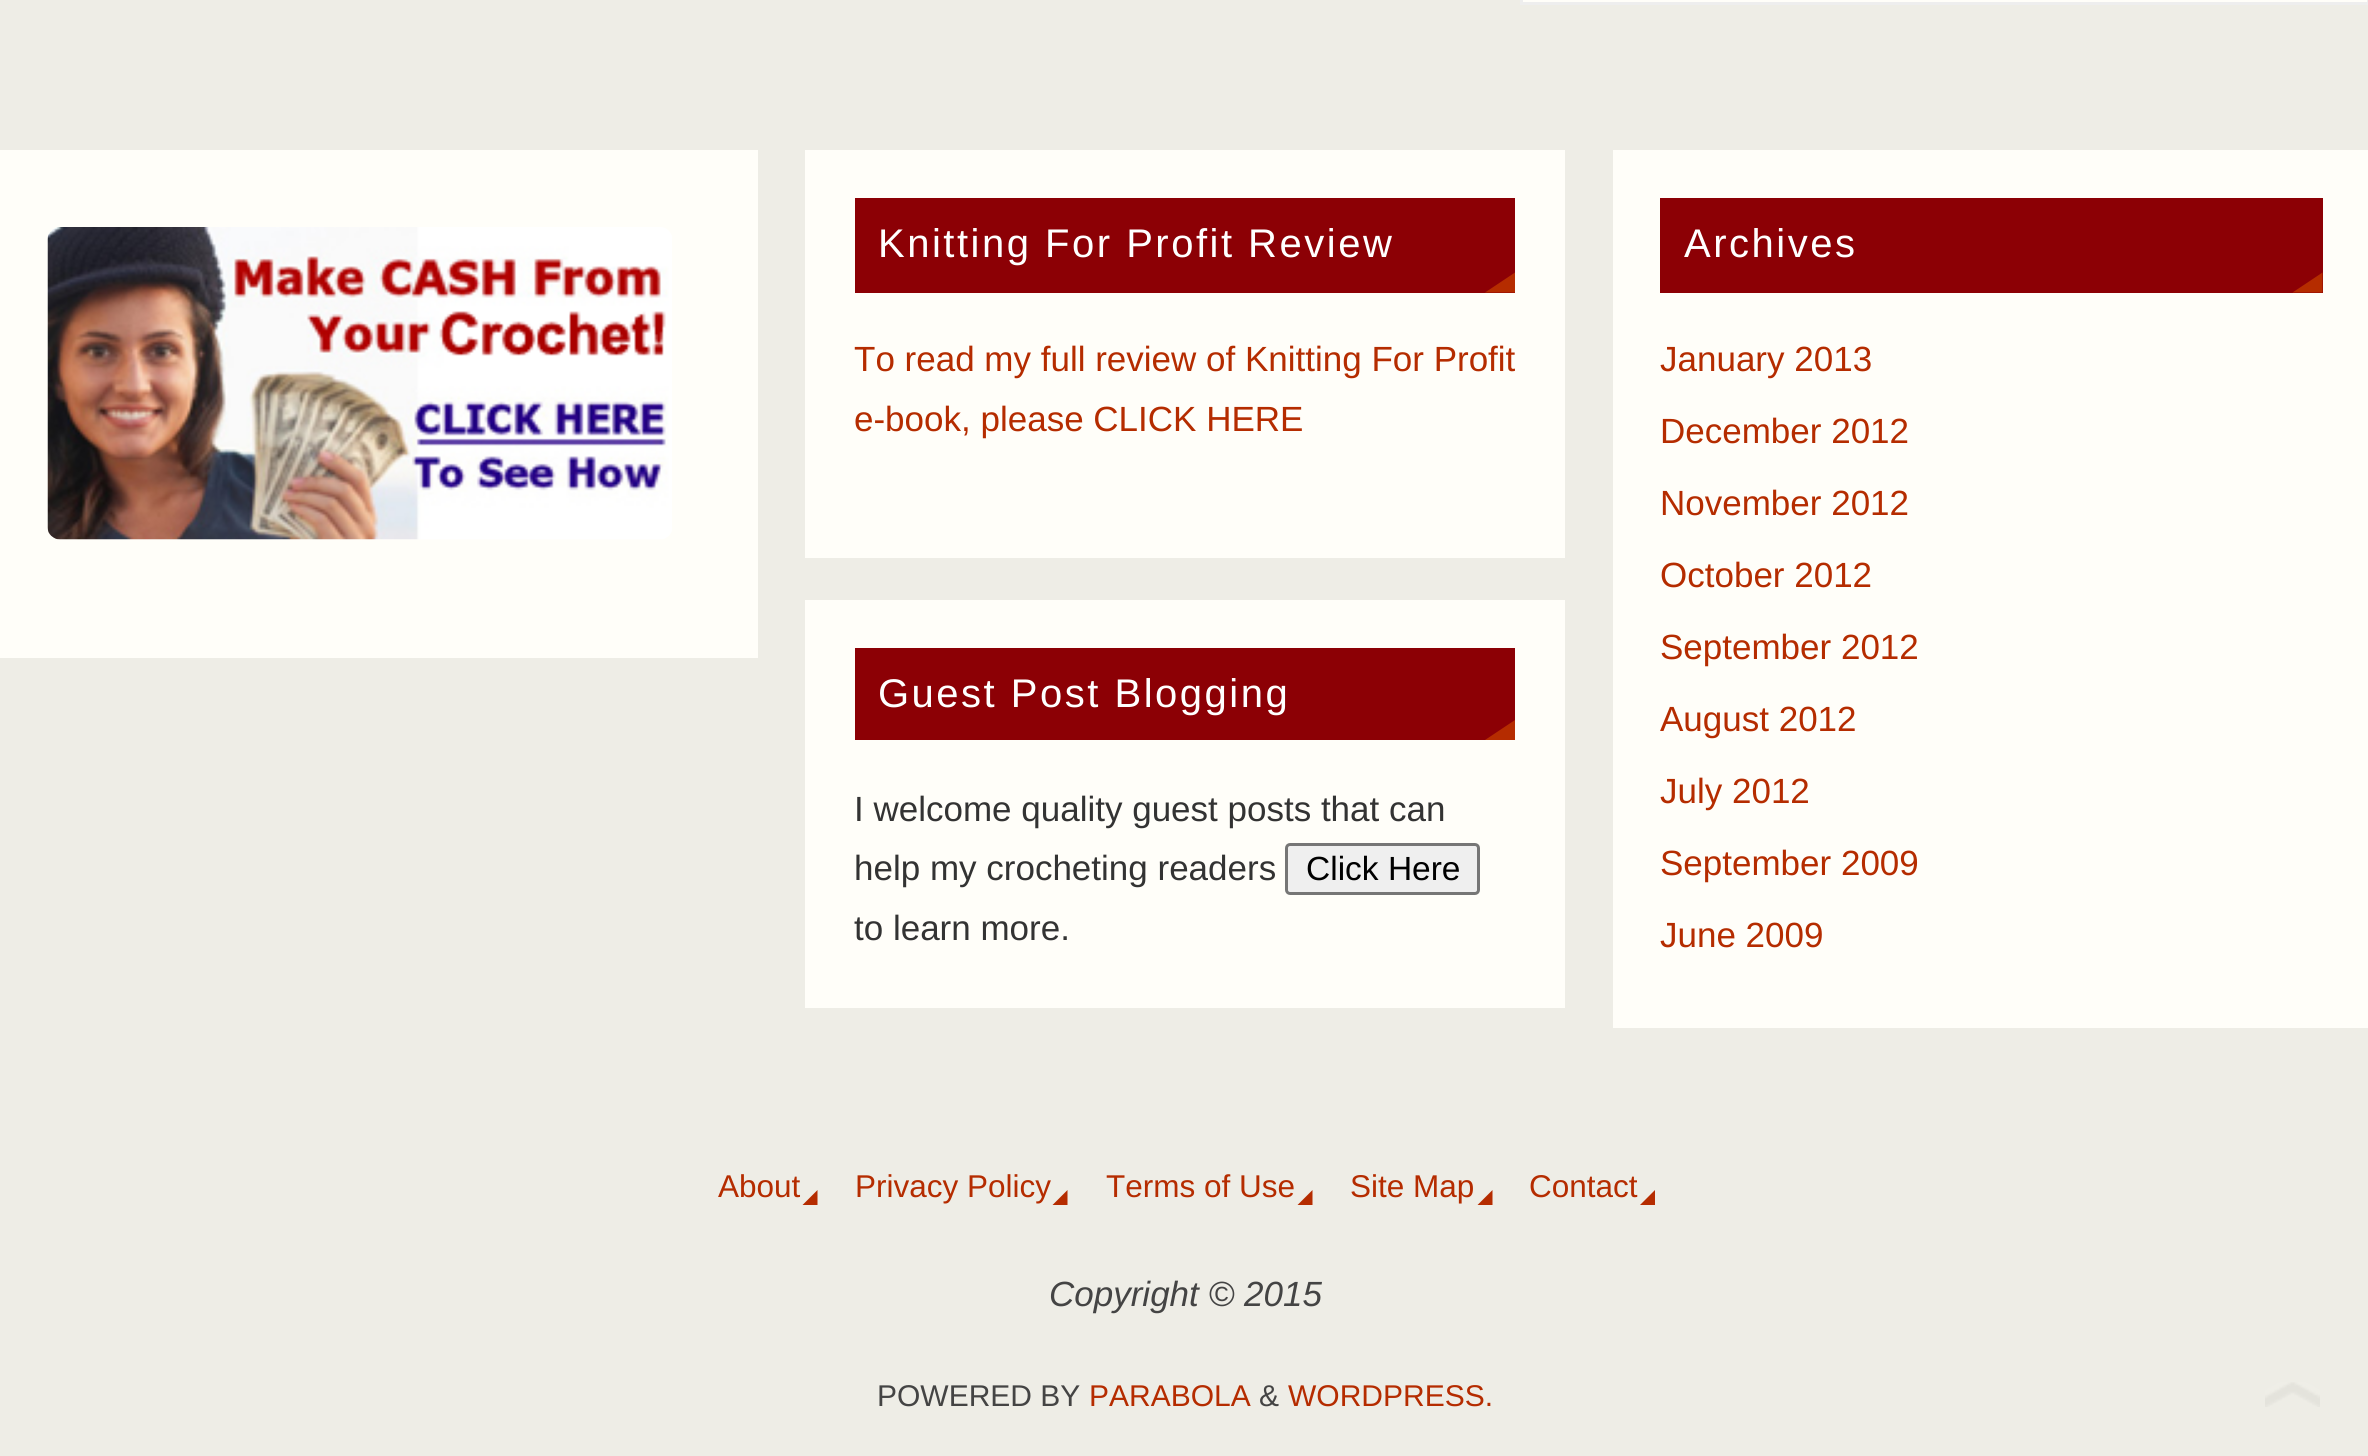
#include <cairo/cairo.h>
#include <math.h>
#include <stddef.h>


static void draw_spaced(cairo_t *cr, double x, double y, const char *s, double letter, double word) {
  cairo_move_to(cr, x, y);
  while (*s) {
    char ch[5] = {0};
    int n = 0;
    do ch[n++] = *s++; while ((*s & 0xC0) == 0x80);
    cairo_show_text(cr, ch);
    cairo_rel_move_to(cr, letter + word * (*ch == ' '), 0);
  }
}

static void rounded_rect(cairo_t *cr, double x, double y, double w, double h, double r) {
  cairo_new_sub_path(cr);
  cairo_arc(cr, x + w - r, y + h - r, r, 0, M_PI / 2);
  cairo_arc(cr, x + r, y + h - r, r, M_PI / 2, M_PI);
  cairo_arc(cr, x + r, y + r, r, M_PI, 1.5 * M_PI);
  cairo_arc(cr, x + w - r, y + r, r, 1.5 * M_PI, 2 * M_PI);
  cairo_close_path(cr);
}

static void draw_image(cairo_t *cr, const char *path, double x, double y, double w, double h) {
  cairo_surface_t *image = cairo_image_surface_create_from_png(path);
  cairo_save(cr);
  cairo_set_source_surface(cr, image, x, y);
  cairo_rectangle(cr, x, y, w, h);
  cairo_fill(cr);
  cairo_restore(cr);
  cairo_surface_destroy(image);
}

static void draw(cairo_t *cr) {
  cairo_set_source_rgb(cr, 238 / 255.0, 237 / 255.0, 230 / 255.0);
  cairo_paint(cr);
  cairo_set_source_rgb(cr, 1, 254 / 255.0, 249 / 255.0);
  cairo_rectangle(cr, 1521.5, -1.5, 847, 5);
  cairo_fill_preserve(cr);
  cairo_set_source_rgb(cr, 238 / 255.0, 238 / 255.0, 238 / 255.0);
  cairo_set_line_width(cr, 3);
  cairo_stroke(cr);
  cairo_set_source_rgb(cr, 1, 254 / 255.0, 249 / 255.0);
  cairo_rectangle(cr, 0, 150, 758, 508);
  cairo_fill(cr);
  draw_image(cr, "images/1.png", 47, 227, 625, 313);
  cairo_rectangle(cr, 805, 150, 760, 408);
  cairo_fill(cr);
  cairo_set_source_rgb(cr, 140 / 255.0, 0, 5 / 255.0);
  cairo_rectangle(cr, 855, 198, 660, 95);
  cairo_fill(cr);
  cairo_set_source_rgb(cr, 181 / 255.0, 44 / 255.0, 0);
  cairo_new_path(cr);
  cairo_move_to(cr, 1515, 292.5);
  cairo_line_to(cr, 1485, 292.5);
  cairo_line_to(cr, 1515, 272.5);
  cairo_close_path(cr);
  cairo_fill(cr);
  cairo_set_source_rgb(cr, 1, 254 / 255.0, 249 / 255.0);
  cairo_rectangle(cr, 805, 600, 760, 408);
  cairo_fill(cr);
  cairo_set_source_rgb(cr, 140 / 255.0, 0, 5 / 255.0);
  cairo_rectangle(cr, 855, 648, 660, 92);
  cairo_fill(cr);
  cairo_set_source_rgb(cr, 181 / 255.0, 44 / 255.0, 0);
  cairo_new_path(cr);
  cairo_move_to(cr, 1515, 740);
  cairo_line_to(cr, 1485, 740);
  cairo_line_to(cr, 1515, 720);
  cairo_close_path(cr);
  cairo_fill(cr);
  cairo_set_source_rgb(cr, 239 / 255.0, 239 / 255.0, 239 / 255.0);
  rounded_rect(cr, 1286.5, 844.5, 192, 49, 3.5);
  cairo_fill_preserve(cr);
  cairo_set_source_rgb(cr, 118 / 255.0, 118 / 255.0, 118 / 255.0);
  cairo_stroke(cr);
  cairo_set_source_rgb(cr, 1, 254 / 255.0, 249 / 255.0);
  cairo_rectangle(cr, 1613, 150, 755, 878);
  cairo_fill(cr);
  cairo_set_source_rgb(cr, 140 / 255.0, 0, 5 / 255.0);
  cairo_rectangle(cr, 1660, 198, 663, 95);
  cairo_fill(cr);
  cairo_set_source_rgb(cr, 181 / 255.0, 44 / 255.0, 0);
  cairo_new_path(cr);
  cairo_move_to(cr, 2322.5, 292.5);
  cairo_line_to(cr, 2292.5, 292.5);
  cairo_line_to(cr, 2322.5, 272.5);
  cairo_close_path(cr);
  cairo_fill(cr);
  cairo_new_path(cr);
  cairo_move_to(cr, 817.5, 1205);
  cairo_line_to(cr, 802.5, 1205);
  cairo_line_to(cr, 817.5, 1190);
  cairo_close_path(cr);
  cairo_fill(cr);
  cairo_new_path(cr);
  cairo_move_to(cr, 1067.5, 1205);
  cairo_line_to(cr, 1052.5, 1205);
  cairo_line_to(cr, 1067.5, 1190);
  cairo_close_path(cr);
  cairo_fill(cr);
  cairo_new_path(cr);
  cairo_move_to(cr, 1312.5, 1205);
  cairo_line_to(cr, 1297.5, 1205);
  cairo_line_to(cr, 1312.5, 1190);
  cairo_close_path(cr);
  cairo_fill(cr);
  cairo_new_path(cr);
  cairo_move_to(cr, 1492.5, 1205);
  cairo_line_to(cr, 1477.5, 1205);
  cairo_line_to(cr, 1492.5, 1190);
  cairo_close_path(cr);
  cairo_fill(cr);
  cairo_new_path(cr);
  cairo_move_to(cr, 1655, 1205);
  cairo_line_to(cr, 1640, 1205);
  cairo_line_to(cr, 1655, 1190);
  cairo_close_path(cr);
  cairo_fill(cr);
  draw_image(cr, "images/2.png", 2265, 1382, 55, 25);
  cairo_select_font_face(cr, "Liberation Sans", CAIRO_FONT_SLANT_NORMAL, CAIRO_FONT_WEIGHT_NORMAL);
  cairo_set_font_size(cr, 40);
  cairo_set_source_rgb(cr, 1, 1, 1);
  draw_spaced(cr, 878, 257, "Knitting For Profit Review", 2.5, 0);
  cairo_set_font_size(cr, 35);
  cairo_set_source_rgb(cr, 181 / 255.0, 44 / 255.0, 0);
  cairo_move_to(cr, 854, 371);
  cairo_show_text(cr, "To read my full review of Knitting For Profit");
  cairo_move_to(cr, 854, 431);
  cairo_show_text(cr, "e-book, please CLICK HERE");
  cairo_set_font_size(cr, 40);
  cairo_set_source_rgb(cr, 1, 1, 1);
  draw_spaced(cr, 878, 707, "Guest Post Blogging", 2.5, 0);
  cairo_set_font_size(cr, 35);
  cairo_set_source_rgb(cr, 51 / 255.0, 51 / 255.0, 51 / 255.0);
  cairo_move_to(cr, 854, 821);
  cairo_show_text(cr, "I welcome quality guest posts that can");
  cairo_move_to(cr, 854, 880);
  cairo_show_text(cr, "help my crocheting readers");
  cairo_set_font_size(cr, 33.5);
  cairo_set_source_rgb(cr, 0, 0, 0);
  cairo_move_to(cr, 1306, 880);
  cairo_show_text(cr, "Click Here");
  cairo_set_font_size(cr, 35);
  cairo_set_source_rgb(cr, 51 / 255.0, 51 / 255.0, 51 / 255.0);
  cairo_move_to(cr, 854, 940);
  cairo_show_text(cr, "to learn more.");
  cairo_set_font_size(cr, 40);
  cairo_set_source_rgb(cr, 1, 1, 1);
  draw_spaced(cr, 1684, 257, "Archives", 2.5, 0);
  cairo_set_font_size(cr, 35);
  cairo_set_source_rgb(cr, 181 / 255.0, 44 / 255.0, 0);
  cairo_move_to(cr, 1660, 371);
  cairo_show_text(cr, "January 2013");
  cairo_move_to(cr, 1660, 443);
  cairo_show_text(cr, "December 2012");
  cairo_move_to(cr, 1660, 515);
  cairo_show_text(cr, "November 2012");
  cairo_move_to(cr, 1660, 587);
  cairo_show_text(cr, "October 2012");
  cairo_move_to(cr, 1660, 659);
  cairo_show_text(cr, "September 2012");
  cairo_move_to(cr, 1660, 731);
  cairo_show_text(cr, "August 2012");
  cairo_move_to(cr, 1660, 803);
  cairo_show_text(cr, "July 2012");
  cairo_move_to(cr, 1660, 875);
  cairo_show_text(cr, "September 2009");
  cairo_move_to(cr, 1660, 947);
  cairo_show_text(cr, "June 2009");
  cairo_set_font_size(cr, 31.5);
  cairo_move_to(cr, 718, 1197);
  cairo_show_text(cr, "About");
  cairo_move_to(cr, 855, 1197);
  cairo_show_text(cr, "Privacy Policy");
  cairo_move_to(cr, 1106, 1197);
  cairo_show_text(cr, "Terms of Use");
  cairo_move_to(cr, 1350, 1197);
  cairo_show_text(cr, "Site Map");
  cairo_move_to(cr, 1529, 1197);
  cairo_show_text(cr, "Contact");
  cairo_select_font_face(cr, "Liberation Sans", CAIRO_FONT_SLANT_ITALIC, CAIRO_FONT_WEIGHT_NORMAL);
  cairo_set_font_size(cr, 35);
  cairo_set_source_rgb(cr, 68 / 255.0, 68 / 255.0, 68 / 255.0);
  cairo_move_to(cr, 1049, 1306);
  cairo_show_text(cr, "Copyright © 2015");
  cairo_select_font_face(cr, "Liberation Sans", CAIRO_FONT_SLANT_NORMAL, CAIRO_FONT_WEIGHT_NORMAL);
  cairo_set_font_size(cr, 30);
  cairo_move_to(cr, 877, 1406);
  cairo_show_text(cr, "POWERED BY");
  cairo_set_source_rgb(cr, 181 / 255.0, 44 / 255.0, 0);
  cairo_move_to(cr, 1089, 1406);
  cairo_show_text(cr, "PARABOLA");
  cairo_set_source_rgb(cr, 68 / 255.0, 68 / 255.0, 68 / 255.0);
  cairo_move_to(cr, 1259, 1406);
  cairo_show_text(cr, "&");
  cairo_set_source_rgb(cr, 181 / 255.0, 44 / 255.0, 0);
  cairo_move_to(cr, 1288, 1406);
  cairo_show_text(cr, "WORDPRESS.");
}

int main(void) {
  cairo_surface_t *surface = cairo_image_surface_create(CAIRO_FORMAT_RGB24, 2368, 1456);
  cairo_t *cr = cairo_create(surface);
  cairo_font_options_t *options = cairo_font_options_create();
  cairo_font_options_set_hint_metrics(options, CAIRO_HINT_METRICS_OFF);
  cairo_font_options_set_hint_style(options, CAIRO_HINT_STYLE_NONE);
  cairo_set_font_options(cr, options);
  cairo_set_miter_limit(cr, 4);
  draw(cr);
  cairo_surface_write_to_png(surface, "out.png");
  cairo_font_options_destroy(options);
  cairo_destroy(cr);
  cairo_surface_destroy(surface);
  return 0;
}
